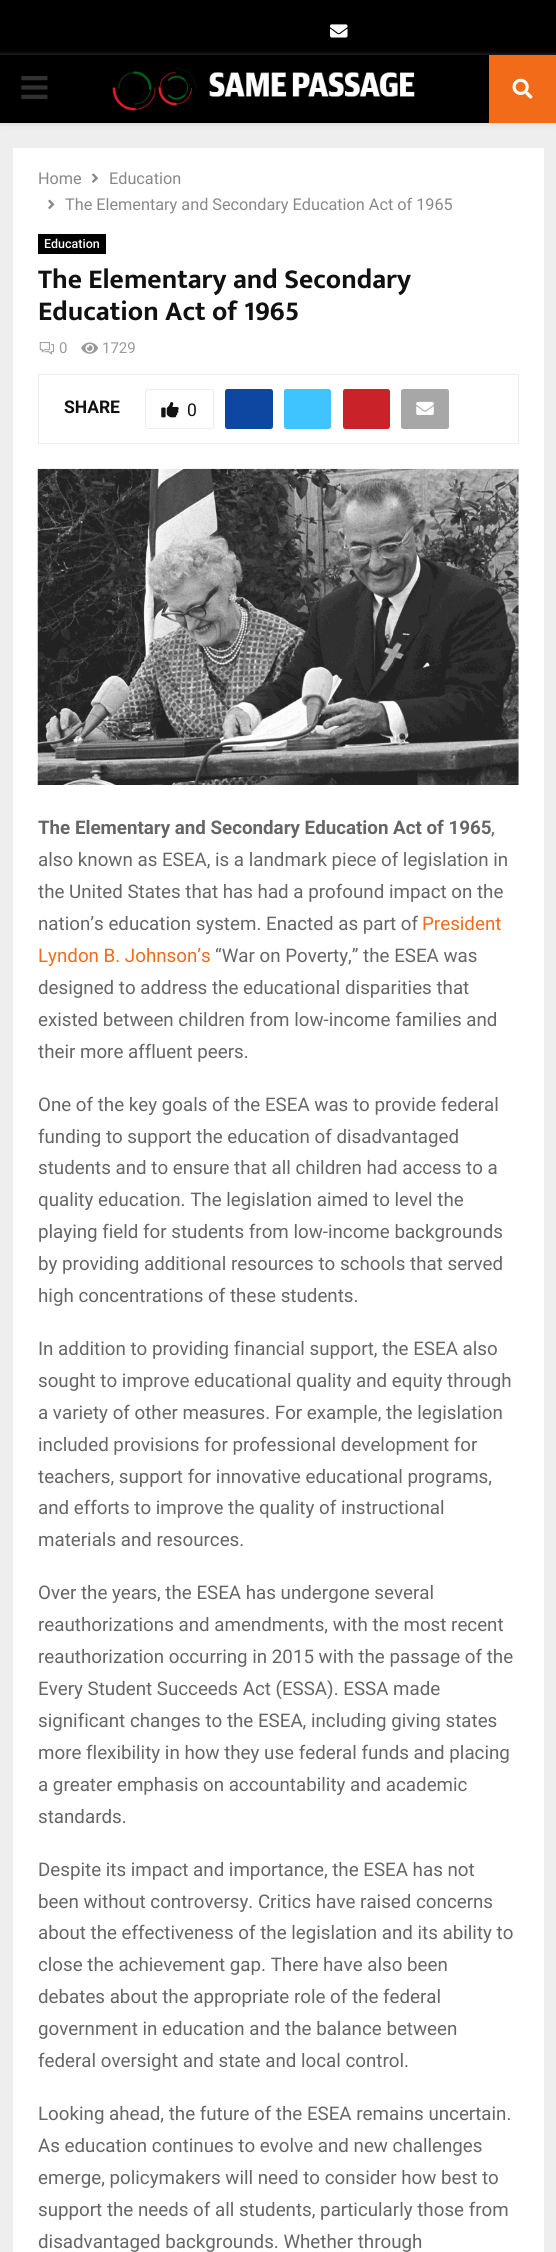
#include <cairo/cairo.h>
#include <math.h>
#include <stddef.h>


static void rounded_rect(cairo_t *cr, double x, double y, double w, double h, double r) {
  cairo_new_sub_path(cr);
  cairo_arc(cr, x + w - r, y + h - r, r, 0, M_PI / 2);
  cairo_arc(cr, x + r, y + h - r, r, M_PI / 2, M_PI);
  cairo_arc(cr, x + r, y + r, r, M_PI, 1.5 * M_PI);
  cairo_arc(cr, x + w - r, y + r, r, 1.5 * M_PI, 2 * M_PI);
  cairo_close_path(cr);
}

static void draw_shadow(cairo_t *cr, double x, double y, double w, double h, double r, double blur, double alpha) {
  cairo_push_group_with_content(cr, CAIRO_CONTENT_ALPHA);
  cairo_set_operator(cr, CAIRO_OPERATOR_SOURCE);
  for (int i = 15; i >= -15 && fmin(w, h) + blur * i / 3 > 0; i -= 2) {
    double e = blur * i / 6;
    cairo_set_source_rgba(cr, 0, 0, 0, alpha * erfc((i - 1) / 8.5) / 2);
    rounded_rect(cr, x - e, y - e, w + 2 * e, h + 2 * e, fmax(0, fmin(r + e + blur * .6, fmin(w, h) / 2 + e)));
    cairo_fill(cr);
  }
  cairo_pattern_t *soft = cairo_pop_group(cr);
  cairo_mask(cr, soft);
  cairo_pattern_destroy(soft);
}

static void draw_image(cairo_t *cr, const char *path, double x, double y, double w, double h) {
  cairo_surface_t *image = cairo_image_surface_create_from_png(path);
  cairo_save(cr);
  cairo_set_source_surface(cr, image, x, y);
  cairo_rectangle(cr, x, y, w, h);
  cairo_fill(cr);
  cairo_restore(cr);
  cairo_surface_destroy(image);
}

static void draw(cairo_t *cr) {
  cairo_set_source_rgb(cr, 238 / 255.0, 238 / 255.0, 238 / 255.0);
  cairo_paint(cr);
  cairo_set_source_rgb(cr, 0, 0, 0);
  cairo_rectangle(cr, 0, 0, 556, 55);
  cairo_fill(cr);
  draw_image(cr, "images/1.png", 330, 24, 18, 14);
  cairo_set_source_rgb(cr, 190 / 255.0, 190 / 255.0, 190 / 255.0);
  draw_shadow(cr, 0, 56, 556, 68, 0, 3, 0.46);
  cairo_set_source_rgb(cr, 0, 0, 0);
  cairo_rectangle(cr, 0, 55, 489, 68);
  cairo_fill(cr);
  draw_image(cr, "images/2.png", 21, 76, 27, 23);
  draw_image(cr, "images/3.png", 112, 67, 303, 44);
  cairo_set_source_rgb(cr, 242 / 255.0, 107 / 255.0, 25 / 255.0);
  cairo_rectangle(cr, 489, 55, 67, 68);
  cairo_fill(cr);
  draw_image(cr, "images/4.png", 512, 78, 21, 21);
  cairo_set_source_rgb(cr, 1, 1, 1);
  cairo_rectangle(cr, 13, 148, 531, 2104);
  cairo_fill(cr);
  draw_image(cr, "images/5.png", 92, 173, 6, 10);
  draw_image(cr, "images/6.png", 48, 199, 7, 10);
  cairo_set_source_rgb(cr, 0, 0, 0);
  cairo_rectangle(cr, 38, 234, 68, 20);
  cairo_fill(cr);
  draw_image(cr, "images/7.png", 39, 342, 15, 13);
  draw_image(cr, "images/8.png", 81, 342, 18, 12);
  cairo_rectangle(cr, 38.5, 374.5, 480, 69);
  cairo_set_source_rgb(cr, 236 / 255.0, 236 / 255.0, 236 / 255.0);
  cairo_set_line_width(cr, 1);
  cairo_stroke(cr);
  rounded_rect(cr, 145.5, 389.5, 68, 39, 2);
  cairo_stroke(cr);
  draw_image(cr, "images/9.png", 161, 402, 18, 16);
  cairo_set_source_rgb(cr, 13 / 255.0, 71 / 255.0, 161 / 255.0);
  rounded_rect(cr, 225, 389, 48, 40, 2.5);
  cairo_fill(cr);
  cairo_set_source_rgb(cr, 64 / 255.0, 196 / 255.0, 1);
  rounded_rect(cr, 284, 389, 47, 40, 2.5);
  cairo_fill(cr);
  cairo_set_source_rgb(cr, 201 / 255.0, 34 / 255.0, 40 / 255.0);
  rounded_rect(cr, 343, 389, 47, 40, 2.5);
  cairo_fill(cr);
  cairo_set_source_rgb(cr, 167 / 255.0, 167 / 255.0, 167 / 255.0);
  rounded_rect(cr, 401, 389, 48, 40, 2.5);
  cairo_fill(cr);
  draw_image(cr, "images/10.png", 416, 401, 18, 14);
  draw_image(cr, "images/11.png", 37, 468, 482, 317);
  cairo_select_font_face(cr, "Roboto", CAIRO_FONT_SLANT_NORMAL, CAIRO_FONT_WEIGHT_NORMAL);
  cairo_set_font_size(cr, 16.25);
  cairo_set_source_rgb(cr, 136 / 255.0, 136 / 255.0, 136 / 255.0);
  cairo_move_to(cr, 38, 184);
  cairo_show_text(cr, "Home");
  cairo_move_to(cr, 109, 184);
  cairo_show_text(cr, "Education");
  cairo_move_to(cr, 65, 210);
  cairo_show_text(cr, "The Elementary and Secondary Education Act of 1965");
  cairo_select_font_face(cr, "Roboto Medium", CAIRO_FONT_SLANT_NORMAL, CAIRO_FONT_WEIGHT_NORMAL);
  cairo_set_font_size(cr, 12.5);
  cairo_set_source_rgb(cr, 1, 1, 1);
  cairo_move_to(cr, 44, 248);
  cairo_show_text(cr, "Education");
  cairo_select_font_face(cr, "Mukta Vaani", CAIRO_FONT_SLANT_NORMAL, CAIRO_FONT_WEIGHT_BOLD);
  cairo_set_font_size(cr, 27.5);
  cairo_set_source_rgb(cr, 17 / 255.0, 17 / 255.0, 17 / 255.0);
  cairo_move_to(cr, 38, 288);
  cairo_show_text(cr, "The Elementary and Secondary");
  cairo_move_to(cr, 38, 320);
  cairo_show_text(cr, "Education Act of 1965");
  cairo_select_font_face(cr, "Roboto", CAIRO_FONT_SLANT_NORMAL, CAIRO_FONT_WEIGHT_NORMAL);
  cairo_set_font_size(cr, 15);
  cairo_set_source_rgb(cr, 153 / 255.0, 153 / 255.0, 153 / 255.0);
  cairo_move_to(cr, 59, 353);
  cairo_show_text(cr, "0");
  cairo_move_to(cr, 102, 353);
  cairo_show_text(cr, "1729");
  cairo_select_font_face(cr, "Roboto", CAIRO_FONT_SLANT_NORMAL, CAIRO_FONT_WEIGHT_BOLD);
  cairo_set_font_size(cr, 17.5);
  cairo_set_source_rgb(cr, 17 / 255.0, 17 / 255.0, 17 / 255.0);
  cairo_move_to(cr, 64, 413);
  cairo_show_text(cr, "SHARE");
  cairo_select_font_face(cr, "Roboto", CAIRO_FONT_SLANT_NORMAL, CAIRO_FONT_WEIGHT_NORMAL);
  cairo_move_to(cr, 187, 416);
  cairo_show_text(cr, "0");
  cairo_select_font_face(cr, "Roboto", CAIRO_FONT_SLANT_NORMAL, CAIRO_FONT_WEIGHT_BOLD);
  cairo_set_font_size(cr, 18.75);
  cairo_set_source_rgb(cr, 102 / 255.0, 102 / 255.0, 102 / 255.0);
  cairo_move_to(cr, 38, 834);
  cairo_show_text(cr, "The Elementary and Secondary Education Act of 1965");
  cairo_select_font_face(cr, "Roboto", CAIRO_FONT_SLANT_NORMAL, CAIRO_FONT_WEIGHT_NORMAL);
  cairo_move_to(cr, 491, 834);
  cairo_show_text(cr, ",");
  cairo_move_to(cr, 38, 866);
  cairo_show_text(cr, "also known as ESEA, is a landmark piece of legislation in");
  cairo_move_to(cr, 38, 898);
  cairo_show_text(cr, "the United States that has had a profound impact on the");
  cairo_move_to(cr, 38, 930);
  cairo_show_text(cr, "nation’s education system. Enacted as part of");
  cairo_set_source_rgb(cr, 242 / 255.0, 107 / 255.0, 25 / 255.0);
  cairo_move_to(cr, 422, 930);
  cairo_show_text(cr, "President");
  cairo_move_to(cr, 38, 962);
  cairo_show_text(cr, "Lyndon B. Johnson’s");
  cairo_set_source_rgb(cr, 102 / 255.0, 102 / 255.0, 102 / 255.0);
  cairo_move_to(cr, 215, 962);
  cairo_show_text(cr, "“War on Poverty,” the ESEA was");
  cairo_move_to(cr, 38, 994);
  cairo_show_text(cr, "designed to address the educational disparities that");
  cairo_move_to(cr, 38, 1026);
  cairo_show_text(cr, "existed between children from low-income families and");
  cairo_move_to(cr, 38, 1058);
  cairo_show_text(cr, "their more affluent peers.");
  cairo_move_to(cr, 38, 1111);
  cairo_show_text(cr, "One of the key goals of the ESEA was to provide federal");
  cairo_move_to(cr, 38, 1143);
  cairo_show_text(cr, "funding to support the education of disadvantaged");
  cairo_move_to(cr, 38, 1174);
  cairo_show_text(cr, "students and to ensure that all children had access to a");
  cairo_move_to(cr, 38, 1206);
  cairo_show_text(cr, "quality education. The legislation aimed to level the");
  cairo_move_to(cr, 38, 1238);
  cairo_show_text(cr, "playing field for students from low-income backgrounds");
  cairo_move_to(cr, 38, 1270);
  cairo_show_text(cr, "by providing additional resources to schools that served");
  cairo_move_to(cr, 38, 1302);
  cairo_show_text(cr, "high concentrations of these students.");
  cairo_move_to(cr, 38, 1355);
  cairo_show_text(cr, "In addition to providing financial support, the ESEA also");
  cairo_move_to(cr, 38, 1387);
  cairo_show_text(cr, "sought to improve educational quality and equity through");
  cairo_move_to(cr, 38, 1419);
  cairo_show_text(cr, "a variety of other measures. For example, the legislation");
  cairo_move_to(cr, 38, 1451);
  cairo_show_text(cr, "included provisions for professional development for");
  cairo_move_to(cr, 38, 1483);
  cairo_show_text(cr, "teachers, support for innovative educational programs,");
  cairo_move_to(cr, 38, 1514);
  cairo_show_text(cr, "and efforts to improve the quality of instructional");
  cairo_move_to(cr, 38, 1546);
  cairo_show_text(cr, "materials and resources.");
  cairo_move_to(cr, 38, 1599);
  cairo_show_text(cr, "Over the years, the ESEA has undergone several");
  cairo_move_to(cr, 38, 1631);
  cairo_show_text(cr, "reauthorizations and amendments, with the most recent");
  cairo_move_to(cr, 38, 1663);
  cairo_show_text(cr, "reauthorization occurring in 2015 with the passage of the");
  cairo_move_to(cr, 38, 1695);
  cairo_show_text(cr, "Every Student Succeeds Act (ESSA). ESSA made");
  cairo_move_to(cr, 38, 1727);
  cairo_show_text(cr, "significant changes to the ESEA, including giving states");
  cairo_move_to(cr, 38, 1759);
  cairo_show_text(cr, "more flexibility in how they use federal funds and placing");
  cairo_move_to(cr, 38, 1791);
  cairo_show_text(cr, "a greater emphasis on accountability and academic");
  cairo_move_to(cr, 38, 1823);
  cairo_show_text(cr, "standards.");
  cairo_move_to(cr, 38, 1876);
  cairo_show_text(cr, "Despite its impact and importance, the ESEA has not");
  cairo_move_to(cr, 38, 1908);
  cairo_show_text(cr, "been without controversy. Critics have raised concerns");
  cairo_move_to(cr, 38, 1939);
  cairo_show_text(cr, "about the effectiveness of the legislation and its ability to");
  cairo_move_to(cr, 38, 1971);
  cairo_show_text(cr, "close the achievement gap. There have also been");
  cairo_move_to(cr, 38, 2003);
  cairo_show_text(cr, "debates about the appropriate role of the federal");
  cairo_move_to(cr, 38, 2035);
  cairo_show_text(cr, "government in education and the balance between");
  cairo_move_to(cr, 38, 2067);
  cairo_show_text(cr, "federal oversight and state and local control.");
  cairo_move_to(cr, 38, 2120);
  cairo_show_text(cr, "Looking ahead, the future of the ESEA remains uncertain.");
  cairo_move_to(cr, 38, 2152);
  cairo_show_text(cr, "As education continues to evolve and new challenges");
  cairo_move_to(cr, 38, 2184);
  cairo_show_text(cr, "emerge, policymakers will need to consider how best to");
  cairo_move_to(cr, 38, 2216);
  cairo_show_text(cr, "support the needs of all students, particularly those from");
  cairo_move_to(cr, 38, 2248);
  cairo_show_text(cr, "disadvantaged backgrounds. Whether through");
}

int main(void) {
  cairo_surface_t *surface = cairo_image_surface_create(CAIRO_FORMAT_RGB24, 556, 2252);
  cairo_t *cr = cairo_create(surface);
  cairo_font_options_t *options = cairo_font_options_create();
  cairo_font_options_set_hint_metrics(options, CAIRO_HINT_METRICS_OFF);
  cairo_font_options_set_hint_style(options, CAIRO_HINT_STYLE_NONE);
  cairo_set_font_options(cr, options);
  cairo_set_miter_limit(cr, 4);
  draw(cr);
  cairo_surface_write_to_png(surface, "out.png");
  cairo_font_options_destroy(options);
  cairo_destroy(cr);
  cairo_surface_destroy(surface);
  return 0;
}
